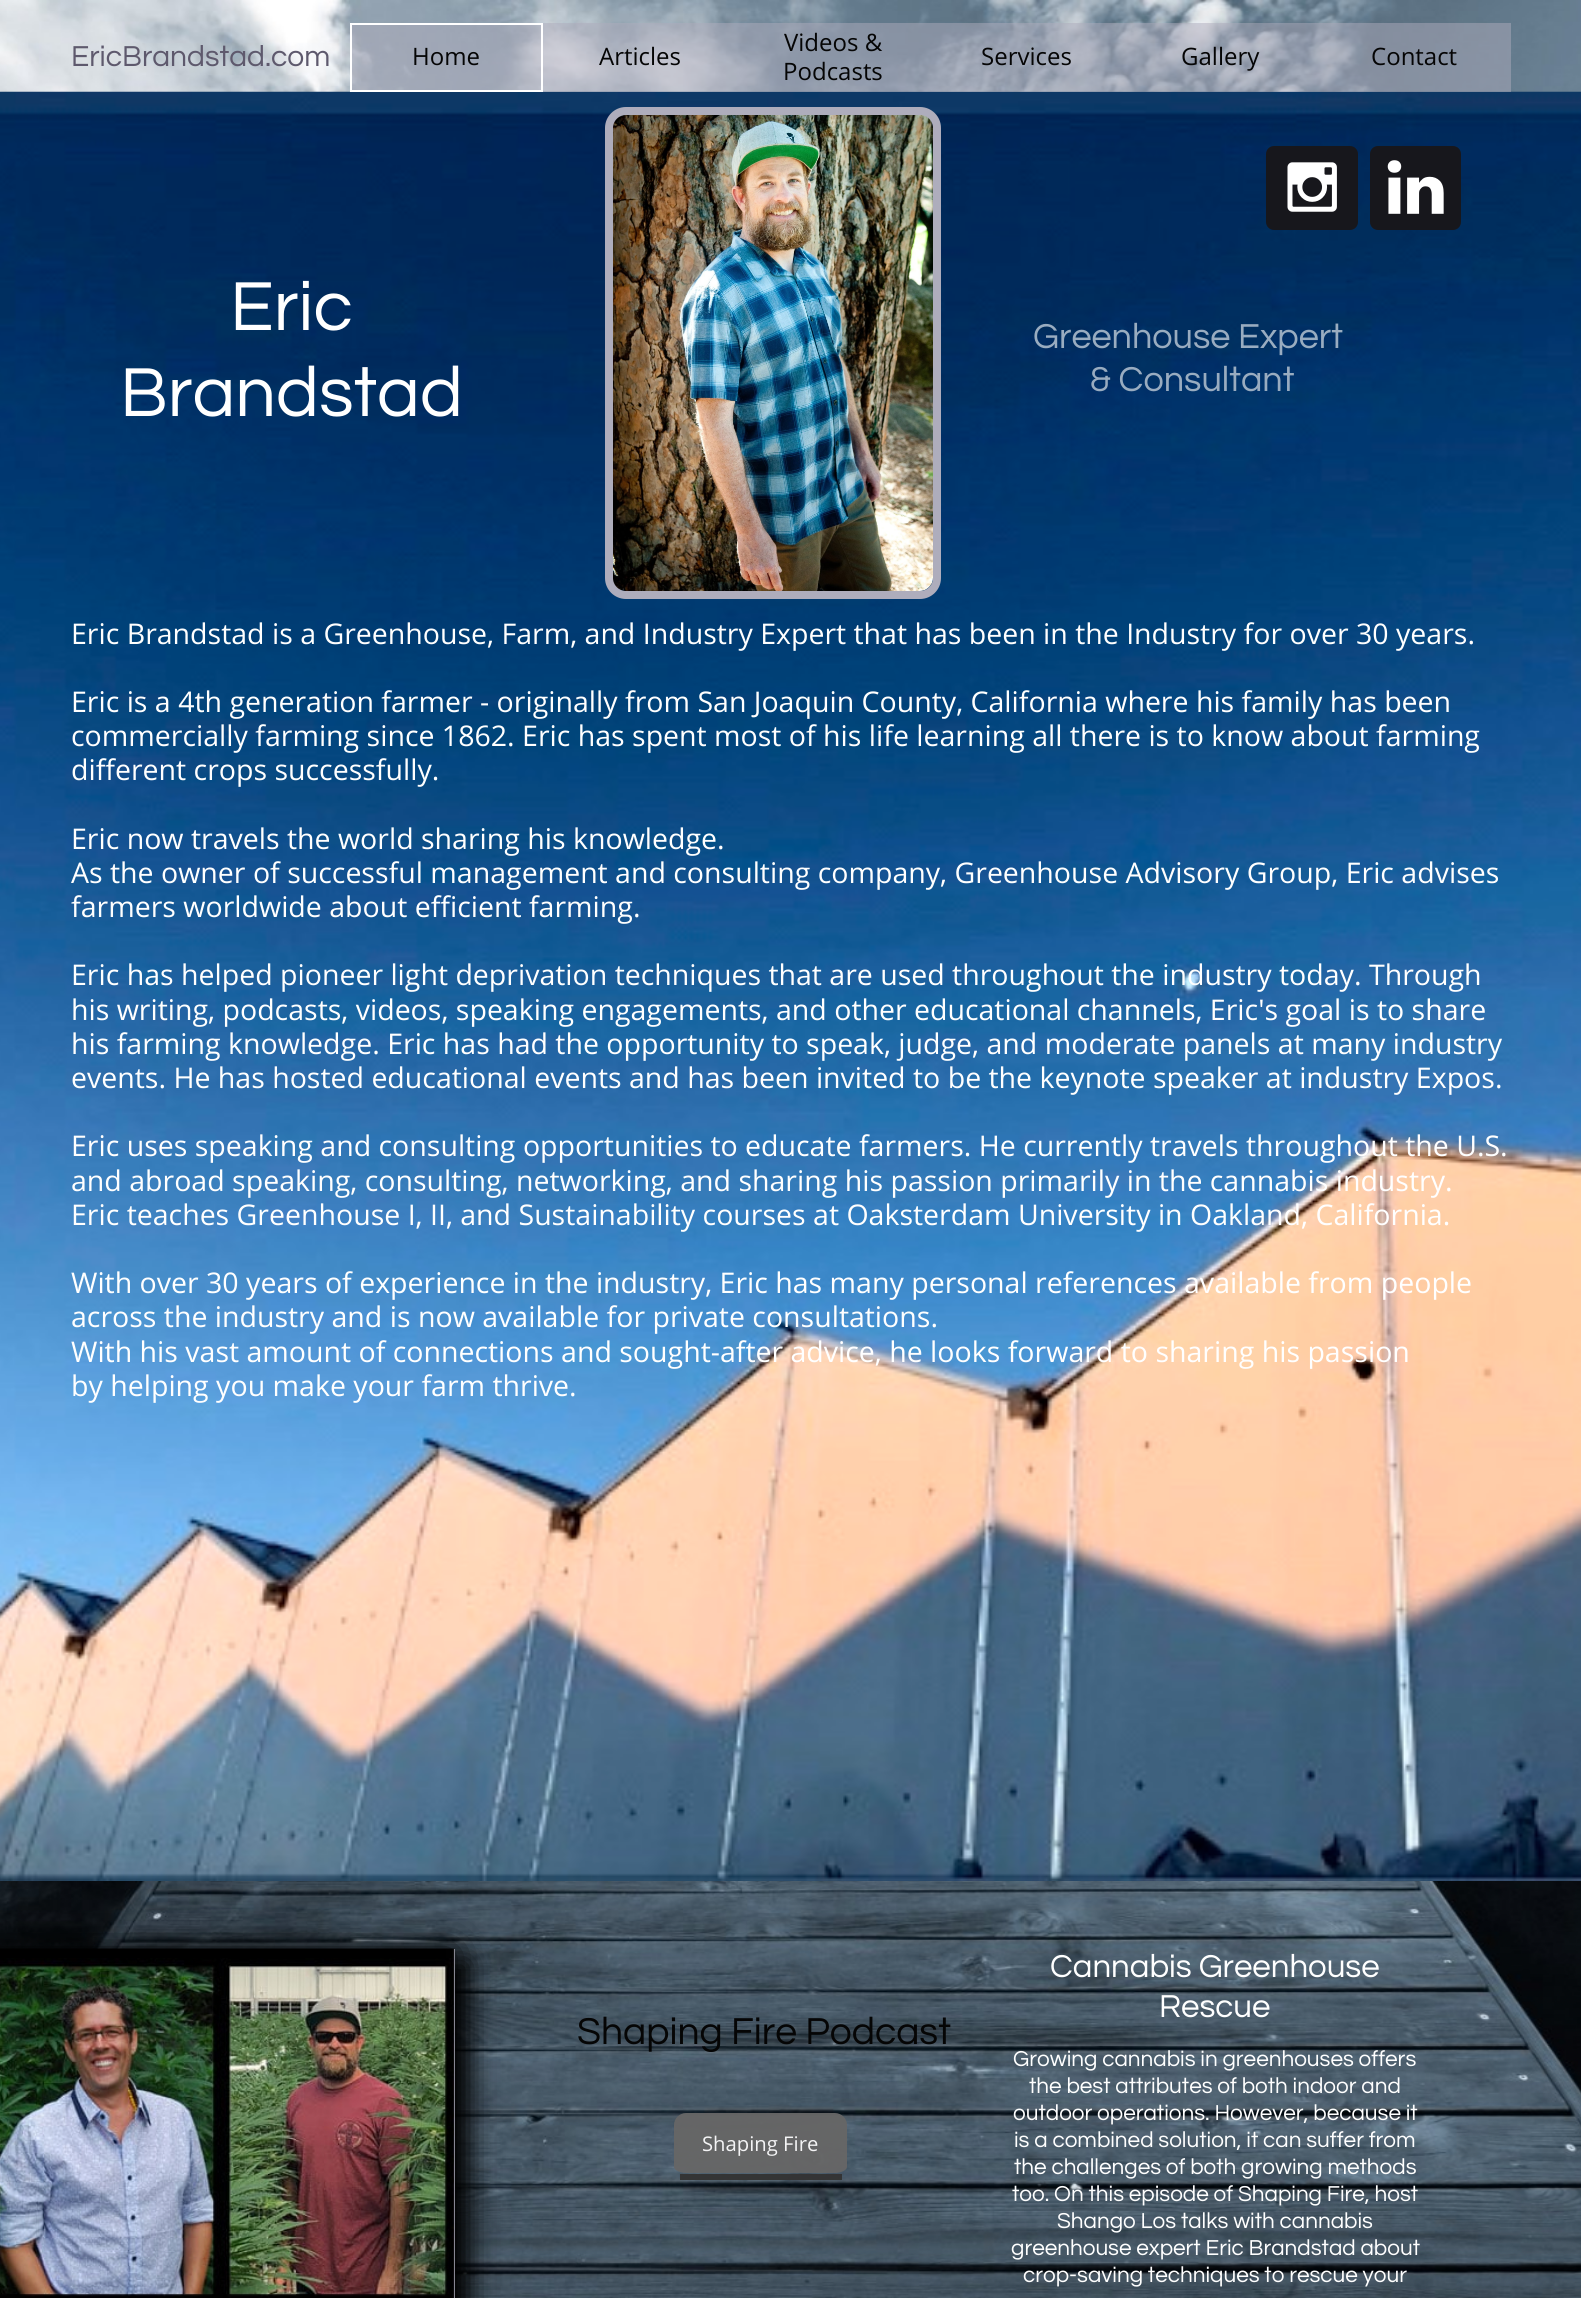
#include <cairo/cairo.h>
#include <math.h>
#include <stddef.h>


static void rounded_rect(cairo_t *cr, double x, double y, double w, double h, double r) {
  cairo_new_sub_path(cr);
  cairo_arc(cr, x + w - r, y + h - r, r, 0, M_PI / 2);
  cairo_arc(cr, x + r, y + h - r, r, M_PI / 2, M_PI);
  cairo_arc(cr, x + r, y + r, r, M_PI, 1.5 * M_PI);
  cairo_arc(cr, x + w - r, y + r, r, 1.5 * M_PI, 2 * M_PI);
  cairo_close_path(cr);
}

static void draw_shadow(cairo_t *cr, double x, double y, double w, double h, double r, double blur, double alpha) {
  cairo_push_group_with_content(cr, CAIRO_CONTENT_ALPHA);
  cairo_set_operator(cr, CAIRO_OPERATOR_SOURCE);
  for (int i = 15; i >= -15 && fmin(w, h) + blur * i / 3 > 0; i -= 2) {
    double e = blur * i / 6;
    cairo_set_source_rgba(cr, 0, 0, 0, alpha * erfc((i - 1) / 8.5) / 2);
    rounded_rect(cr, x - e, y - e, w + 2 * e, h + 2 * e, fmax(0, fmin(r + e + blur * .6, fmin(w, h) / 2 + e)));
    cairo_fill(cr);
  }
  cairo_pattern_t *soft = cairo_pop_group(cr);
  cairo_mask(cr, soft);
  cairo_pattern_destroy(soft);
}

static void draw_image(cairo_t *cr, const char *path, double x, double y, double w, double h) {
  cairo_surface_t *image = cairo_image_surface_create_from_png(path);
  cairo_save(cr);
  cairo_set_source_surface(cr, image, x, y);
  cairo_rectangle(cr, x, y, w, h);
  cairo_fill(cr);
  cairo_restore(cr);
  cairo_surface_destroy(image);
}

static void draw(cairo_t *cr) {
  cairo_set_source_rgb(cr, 1, 1, 1);
  cairo_paint(cr);
  draw_image(cr, "images/1.png", 0, 0, 1581, 2298);
  draw_image(cr, "images/2.png", 0, 91, 1581, 1790);
  cairo_set_source_rgba(cr, 174 / 255.0, 173 / 255.0, 188 / 255.0, 0.5);
  cairo_rectangle(cr, 352, 23, 1159, 69);
  cairo_fill(cr);
  cairo_rectangle(cr, 351, 24, 191, 67);
  cairo_set_source_rgb(cr, 1, 1, 1);
  cairo_stroke(cr);
  draw_image(cr, "images/3.png", 613, 115, 320, 476);
  rounded_rect(cr, 609, 111, 328, 484, 17);
  cairo_set_source_rgb(cr, 174 / 255.0, 173 / 255.0, 188 / 255.0);
  cairo_set_line_width(cr, 8);
  cairo_stroke(cr);
  cairo_set_source_rgb(cr, 23 / 255.0, 23 / 255.0, 28 / 255.0);
  rounded_rect(cr, 1266, 146, 92, 84, 8);
  cairo_fill(cr);
  draw_image(cr, "images/4.png", 1287, 162, 50, 50);
  rounded_rect(cr, 1370, 146, 91, 84, 8);
  cairo_fill(cr);
  draw_image(cr, "images/5.png", 1387, 160, 57, 54);
  cairo_set_source_rgb(cr, 174 / 255.0, 173 / 255.0, 188 / 255.0);
  cairo_rectangle(cr, 454, 1949, 1, 349);
  cairo_fill(cr);
  draw_image(cr, "images/6.png", 0, 1948, 455, 350);
  cairo_save(cr);
  cairo_set_fill_rule(cr, CAIRO_FILL_RULE_EVEN_ODD);
  cairo_new_path(cr);
  cairo_move_to(cr, 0, 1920);
  cairo_line_to(cr, 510, 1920);
  cairo_line_to(cr, 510, 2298);
  cairo_line_to(cr, 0, 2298);
  cairo_close_path(cr);
  cairo_move_to(cr, -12, 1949);
  cairo_line_to(cr, 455, 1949);
  cairo_line_to(cr, 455, 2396);
  cairo_line_to(cr, -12, 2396);
  cairo_close_path(cr);
  cairo_clip(cr);
  cairo_set_source_rgb(cr, 0, 0, 0);
  draw_shadow(cr, 2, 1962, 466, 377, 0, 13.5, 1);
  cairo_restore(cr);
  cairo_save(cr);
  cairo_set_fill_rule(cr, CAIRO_FILL_RULE_EVEN_ODD);
  cairo_new_path(cr);
  cairo_move_to(cr, 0, 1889);
  cairo_line_to(cr, 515, 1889);
  cairo_line_to(cr, 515, 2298);
  cairo_line_to(cr, 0, 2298);
  cairo_close_path(cr);
  cairo_move_to(cr, -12, 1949);
  cairo_line_to(cr, 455, 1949);
  cairo_line_to(cr, 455, 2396);
  cairo_line_to(cr, -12, 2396);
  cairo_close_path(cr);
  cairo_clip(cr);
  cairo_set_source_rgb(cr, 0, 0, 0);
  draw_shadow(cr, -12, 1949, 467, 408, 0, 19.5, 1);
  cairo_restore(cr);
  cairo_set_source_rgba(cr, 102 / 255.0, 102 / 255.0, 102 / 255.0, 0.96);
  cairo_new_path(cr);
  cairo_move_to(cr, 686, 2113);
  cairo_line_to(cr, 835, 2113);
  cairo_curve_to(cr, 841, 2113, 847, 2118, 847, 2125);
  cairo_line_to(cr, 847, 2167);
  cairo_curve_to(cr, 847, 2170, 841, 2173, 835, 2173);
  cairo_line_to(cr, 686, 2173);
  cairo_curve_to(cr, 680, 2173, 674, 2170, 674, 2167);
  cairo_line_to(cr, 674, 2125);
  cairo_curve_to(cr, 674, 2118, 680, 2113, 686, 2113);
  cairo_close_path(cr);
  cairo_fill(cr);
  cairo_set_source_rgba(cr, 51 / 255.0, 51 / 255.0, 51 / 255.0, 0.96);
  cairo_rectangle(cr, 680, 2174, 162, 6);
  cairo_fill(cr);
  cairo_select_font_face(cr, "Questrial", CAIRO_FONT_SLANT_NORMAL, CAIRO_FONT_WEIGHT_NORMAL);
  cairo_set_font_size(cr, 30);
  cairo_set_source_rgb(cr, 94 / 255.0, 89 / 255.0, 109 / 255.0);
  cairo_move_to(cr, 71, 66);
  cairo_show_text(cr, "EricBrandstad.com");
  cairo_select_font_face(cr, "Open Sans", CAIRO_FONT_SLANT_NORMAL, CAIRO_FONT_WEIGHT_NORMAL);
  cairo_set_font_size(cr, 24);
  cairo_set_source_rgb(cr, 5 / 255.0, 5 / 255.0, 5 / 255.0);
  cairo_move_to(cr, 412, 65);
  cairo_show_text(cr, "Home");
  cairo_move_to(cr, 599, 65);
  cairo_show_text(cr, "Articles");
  cairo_move_to(cr, 784, 51);
  cairo_show_text(cr, "Videos &");
  cairo_move_to(cr, 783, 80);
  cairo_show_text(cr, "Podcasts");
  cairo_move_to(cr, 981, 65);
  cairo_show_text(cr, "Services");
  cairo_move_to(cr, 1181, 65);
  cairo_show_text(cr, "Gallery");
  cairo_move_to(cr, 1371, 65);
  cairo_show_text(cr, "Contact");
  cairo_select_font_face(cr, "Questrial", CAIRO_FONT_SLANT_NORMAL, CAIRO_FONT_WEIGHT_NORMAL);
  cairo_set_font_size(cr, 72);
  cairo_set_source_rgb(cr, 1, 1, 1);
  cairo_move_to(cr, 230, 330);
  cairo_show_text(cr, "Eric");
  cairo_move_to(cr, 120, 416);
  cairo_show_text(cr, "Brandstad");
  cairo_set_font_size(cr, 36);
  cairo_set_source_rgb(cr, 153 / 255.0, 172 / 255.0, 192 / 255.0);
  cairo_move_to(cr, 1033, 348);
  cairo_show_text(cr, "Greenhouse Expert");
  cairo_move_to(cr, 1090, 391);
  cairo_show_text(cr, "& Consultant");
  cairo_select_font_face(cr, "Open Sans", CAIRO_FONT_SLANT_NORMAL, CAIRO_FONT_WEIGHT_NORMAL);
  cairo_set_font_size(cr, 28.5);
  cairo_set_source_rgb(cr, 1, 1, 1);
  cairo_move_to(cr, 71, 644);
  cairo_show_text(cr, "Eric Brandstad is a Greenhouse, Farm, and Industry Expert that has been in the Industry for over 30 years.");
  cairo_move_to(cr, 71, 712);
  cairo_show_text(cr, "Eric is a 4th generation farmer - originally from San Joaquin County, California where his family has been");
  cairo_move_to(cr, 71, 746);
  cairo_show_text(cr, "commercially farming since 1862. Eric has spent most of his life learning all there is to know about farming");
  cairo_move_to(cr, 71, 780);
  cairo_show_text(cr, "different crops successfully.");
  cairo_move_to(cr, 71, 849);
  cairo_show_text(cr, "Eric now travels the world sharing his knowledge.");
  cairo_move_to(cr, 71, 883);
  cairo_show_text(cr, "As the owner of successful management and consulting company, Greenhouse Advisory Group, Eric advises");
  cairo_move_to(cr, 71, 917);
  cairo_show_text(cr, "farmers worldwide about efficient farming.");
  cairo_move_to(cr, 71, 985);
  cairo_show_text(cr, "Eric has helped pioneer light deprivation techniques that are used throughout the industry today. Through");
  cairo_move_to(cr, 71, 1020);
  cairo_show_text(cr, "his writing, podcasts, videos, speaking engagements, and other educational channels, Eric's goal is to share");
  cairo_move_to(cr, 71, 1054);
  cairo_show_text(cr, "his farming knowledge. Eric has had the opportunity to speak, judge, and moderate panels at many industry");
  cairo_move_to(cr, 71, 1088);
  cairo_show_text(cr, "events. He has hosted educational events and has been invited to be the keynote speaker at industry Expos.");
  cairo_move_to(cr, 71, 1156);
  cairo_show_text(cr, "Eric uses speaking and consulting opportunities to educate farmers. He currently travels throughout the U.S.");
  cairo_move_to(cr, 71, 1191);
  cairo_show_text(cr, "and abroad speaking, consulting, networking, and sharing his passion primarily in the cannabis industry.");
  cairo_move_to(cr, 71, 1225);
  cairo_show_text(cr, "Eric teaches Greenhouse I, II, and Sustainability courses at Oaksterdam University in Oakland, California.");
  cairo_move_to(cr, 71, 1293);
  cairo_show_text(cr, "With over 30 years of experience in the industry, Eric has many personal references available from people");
  cairo_move_to(cr, 71, 1327);
  cairo_show_text(cr, "across the industry and is now available for private consultations.");
  cairo_move_to(cr, 71, 1362);
  cairo_show_text(cr, "With his vast amount of connections and sought-after advice, he looks forward to sharing his passion");
  cairo_move_to(cr, 71, 1396);
  cairo_show_text(cr, "by helping you make your farm thrive.");
  cairo_select_font_face(cr, "Questrial", CAIRO_FONT_SLANT_NORMAL, CAIRO_FONT_WEIGHT_NORMAL);
  cairo_set_font_size(cr, 33);
  cairo_move_to(cr, 1050, 1977);
  cairo_show_text(cr, "Cannabis Greenhouse");
  cairo_move_to(cr, 1159, 2017);
  cairo_show_text(cr, "Rescue");
  cairo_set_font_size(cr, 39);
  cairo_set_source_rgb(cr, 5 / 255.0, 5 / 255.0, 5 / 255.0);
  cairo_move_to(cr, 577, 2044);
  cairo_show_text(cr, "Shaping Fire Podcast");
  cairo_select_font_face(cr, "Open Sans", CAIRO_FONT_SLANT_NORMAL, CAIRO_FONT_WEIGHT_NORMAL);
  cairo_set_font_size(cr, 20.25);
  cairo_set_source_rgb(cr, 244 / 255.0, 244 / 255.0, 245 / 255.0);
  cairo_move_to(cr, 702, 2151);
  cairo_show_text(cr, "Shaping Fire");
  cairo_select_font_face(cr, "Questrial", CAIRO_FONT_SLANT_NORMAL, CAIRO_FONT_WEIGHT_NORMAL);
  cairo_set_font_size(cr, 22.5);
  cairo_set_source_rgb(cr, 1, 1, 1);
  cairo_move_to(cr, 1013, 2066);
  cairo_show_text(cr, "Growing cannabis in greenhouses offers");
  cairo_move_to(cr, 1029, 2093);
  cairo_show_text(cr, "the best attributes of both indoor and");
  cairo_move_to(cr, 1013, 2120);
  cairo_show_text(cr, "outdoor operations. However, because it");
  cairo_move_to(cr, 1014, 2147);
  cairo_show_text(cr, "is a combined solution, it can suffer from");
  cairo_move_to(cr, 1014, 2174);
  cairo_show_text(cr, "the challenges of both growing methods");
  cairo_move_to(cr, 1012, 2201);
  cairo_show_text(cr, "too. On this episode of Shaping Fire, host");
  cairo_move_to(cr, 1057, 2228);
  cairo_show_text(cr, "Shango Los talks with cannabis");
  cairo_move_to(cr, 1011, 2255);
  cairo_show_text(cr, "greenhouse expert Eric Brandstad about");
  cairo_move_to(cr, 1023, 2282);
  cairo_show_text(cr, "crop-saving techniques to rescue your");
}

int main(void) {
  cairo_surface_t *surface = cairo_image_surface_create(CAIRO_FORMAT_RGB24, 1581, 2298);
  cairo_t *cr = cairo_create(surface);
  cairo_font_options_t *options = cairo_font_options_create();
  cairo_font_options_set_hint_metrics(options, CAIRO_HINT_METRICS_OFF);
  cairo_font_options_set_hint_style(options, CAIRO_HINT_STYLE_NONE);
  cairo_set_font_options(cr, options);
  cairo_set_miter_limit(cr, 4);
  draw(cr);
  cairo_surface_write_to_png(surface, "out.png");
  cairo_font_options_destroy(options);
  cairo_destroy(cr);
  cairo_surface_destroy(surface);
  return 0;
}
